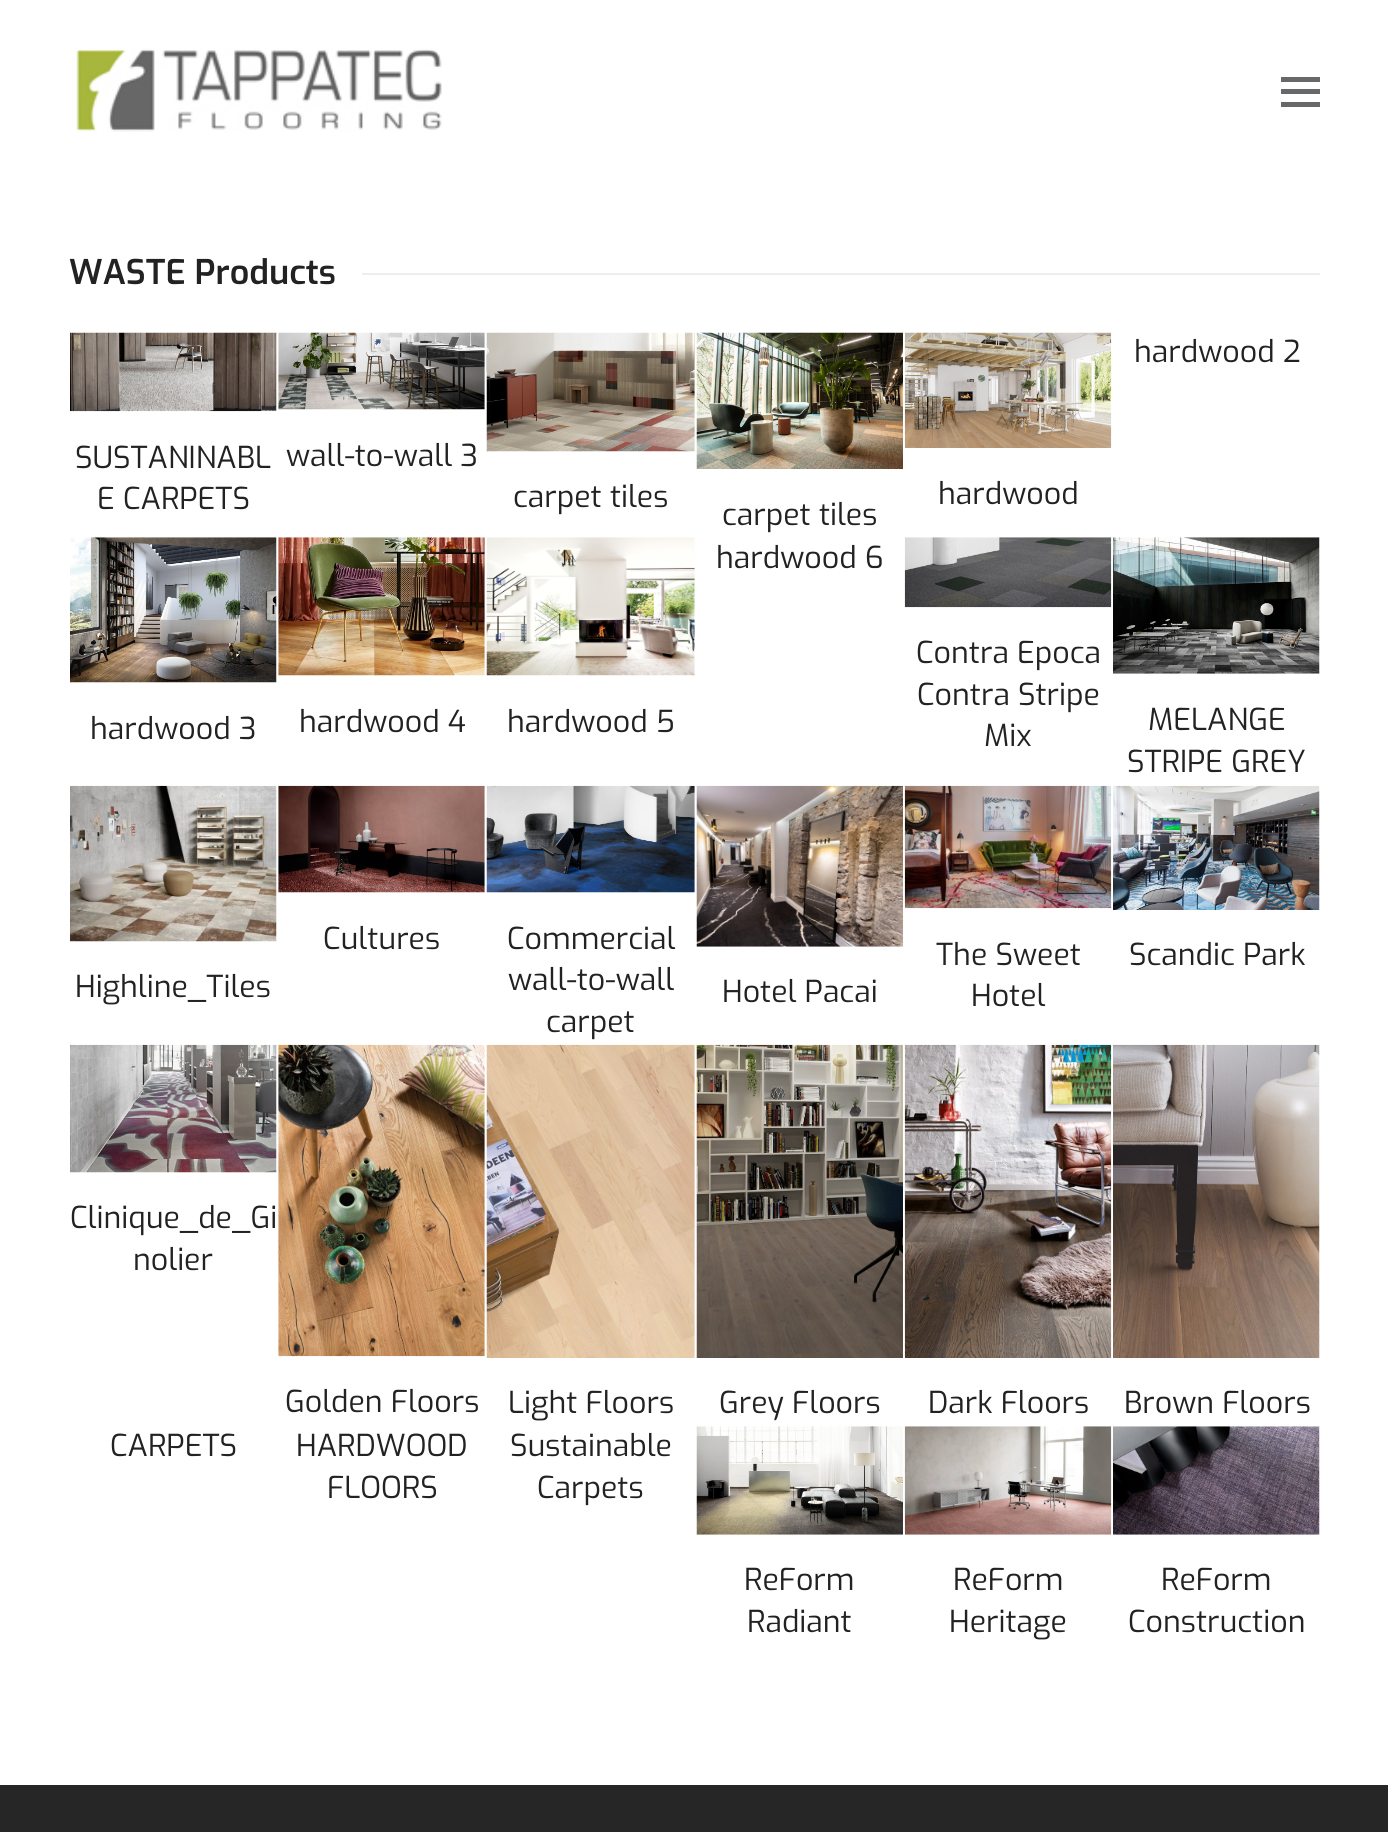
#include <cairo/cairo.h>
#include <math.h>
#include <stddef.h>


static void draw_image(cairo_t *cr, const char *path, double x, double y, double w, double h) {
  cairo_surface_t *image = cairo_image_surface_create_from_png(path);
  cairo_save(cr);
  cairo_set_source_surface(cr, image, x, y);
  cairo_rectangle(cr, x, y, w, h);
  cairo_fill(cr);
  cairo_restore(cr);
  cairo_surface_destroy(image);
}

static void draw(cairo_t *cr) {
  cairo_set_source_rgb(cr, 1, 1, 1);
  cairo_paint(cr);
  draw_image(cr, "images/1.png", 76, 48, 366, 84);
  cairo_set_source_rgb(cr, 103 / 255.0, 104 / 255.0, 105 / 255.0);
  cairo_rectangle(cr, 1281, 89, 39, 5);
  cairo_fill(cr);
  cairo_rectangle(cr, 1281, 77, 39, 5);
  cairo_fill(cr);
  cairo_rectangle(cr, 1281, 102, 39, 5);
  cairo_fill(cr);
  cairo_set_source_rgb(cr, 238 / 255.0, 238 / 255.0, 238 / 255.0);
  cairo_rectangle(cr, 362, 273, 958, 2);
  cairo_fill(cr);
  draw_image(cr, "images/2.png", 70, 332, 207, 80);
  draw_image(cr, "images/3.png", 278, 332, 207, 78);
  draw_image(cr, "images/4.png", 486, 332, 209, 120);
  draw_image(cr, "images/5.png", 696, 332, 207, 137);
  draw_image(cr, "images/6.png", 904, 332, 208, 116);
  draw_image(cr, "images/7.png", 70, 537, 207, 146);
  draw_image(cr, "images/8.png", 278, 537, 207, 139);
  draw_image(cr, "images/9.png", 486, 537, 209, 139);
  draw_image(cr, "images/10.png", 904, 537, 208, 71);
  draw_image(cr, "images/11.png", 1113, 537, 207, 137);
  draw_image(cr, "images/12.png", 278, 785, 207, 108);
  draw_image(cr, "images/13.png", 486, 785, 209, 108);
  draw_image(cr, "images/14.png", 904, 785, 208, 124);
  draw_image(cr, "images/15.png", 1113, 785, 207, 125);
  draw_image(cr, "images/16.png", 70, 785, 207, 157);
  draw_image(cr, "images/17.png", 696, 785, 207, 162);
  draw_image(cr, "images/18.png", 70, 1044, 207, 129);
  draw_image(cr, "images/19.png", 278, 1044, 207, 313);
  draw_image(cr, "images/20.png", 486, 1044, 209, 314);
  draw_image(cr, "images/21.png", 696, 1044, 207, 314);
  draw_image(cr, "images/22.png", 904, 1044, 208, 314);
  draw_image(cr, "images/23.png", 1113, 1044, 207, 314);
  draw_image(cr, "images/24.png", 696, 1426, 207, 109);
  draw_image(cr, "images/25.png", 904, 1426, 208, 109);
  draw_image(cr, "images/26.png", 1113, 1426, 207, 109);
  cairo_set_source_rgb(cr, 38 / 255.0, 38 / 255.0, 38 / 255.0);
  cairo_rectangle(cr, 0, 1785, 1388, 47);
  cairo_fill(cr);
  cairo_select_font_face(cr, "Exo SemiBold", CAIRO_FONT_SLANT_NORMAL, CAIRO_FONT_WEIGHT_NORMAL);
  cairo_set_font_size(cr, 34);
  cairo_set_source_rgb(cr, 34 / 255.0, 34 / 255.0, 34 / 255.0);
  cairo_move_to(cr, 69, 284);
  cairo_show_text(cr, "WASTE Products");
  cairo_select_font_face(cr, "Exo", CAIRO_FONT_SLANT_NORMAL, CAIRO_FONT_WEIGHT_NORMAL);
  cairo_set_font_size(cr, 30.25);
  cairo_move_to(cr, 1134, 362);
  cairo_show_text(cr, "hardwood 2");
  cairo_move_to(cr, 75, 468);
  cairo_show_text(cr, "SUSTANINABL");
  cairo_move_to(cr, 97, 509);
  cairo_show_text(cr, "E CARPETS");
  cairo_move_to(cr, 286, 466);
  cairo_show_text(cr, "wall-to-wall 3");
  cairo_move_to(cr, 513, 507);
  cairo_show_text(cr, "carpet tiles");
  cairo_move_to(cr, 722, 525);
  cairo_show_text(cr, "carpet tiles");
  cairo_move_to(cr, 938, 504);
  cairo_show_text(cr, "hardwood");
  cairo_move_to(cr, 716, 568);
  cairo_show_text(cr, "hardwood 6");
  cairo_move_to(cr, 90, 739);
  cairo_show_text(cr, "hardwood 3");
  cairo_move_to(cr, 299, 732);
  cairo_show_text(cr, "hardwood 4");
  cairo_move_to(cr, 507, 732);
  cairo_show_text(cr, "hardwood 5");
  cairo_move_to(cr, 916, 663);
  cairo_show_text(cr, "Contra Epoca");
  cairo_move_to(cr, 917, 705);
  cairo_show_text(cr, "Contra Stripe");
  cairo_move_to(cr, 984, 746);
  cairo_show_text(cr, "Mix");
  cairo_move_to(cr, 1148, 730);
  cairo_show_text(cr, "MELANGE");
  cairo_move_to(cr, 1127, 772);
  cairo_show_text(cr, "STRIPE GREY");
  cairo_move_to(cr, 323, 949);
  cairo_show_text(cr, "Cultures");
  cairo_move_to(cr, 507, 949);
  cairo_show_text(cr, "Commercial");
  cairo_move_to(cr, 508, 990);
  cairo_show_text(cr, "wall-to-wall");
  cairo_move_to(cr, 546, 1032);
  cairo_show_text(cr, "carpet");
  cairo_move_to(cr, 936, 965);
  cairo_show_text(cr, "The Sweet");
  cairo_move_to(cr, 971, 1006);
  cairo_show_text(cr, "Hotel");
  cairo_move_to(cr, 1129, 965);
  cairo_show_text(cr, "Scandic Park");
  cairo_move_to(cr, 75, 997);
  cairo_show_text(cr, "Highline_Tiles");
  cairo_move_to(cr, 722, 1002);
  cairo_show_text(cr, "Hotel Pacai");
  cairo_move_to(cr, 70, 1228);
  cairo_show_text(cr, "Clinique_de_Gi");
  cairo_move_to(cr, 133, 1270);
  cairo_show_text(cr, "nolier");
  cairo_move_to(cr, 285, 1412);
  cairo_show_text(cr, "Golden Floors");
  cairo_move_to(cr, 508, 1413);
  cairo_show_text(cr, "Light Floors");
  cairo_move_to(cr, 719, 1413);
  cairo_show_text(cr, "Grey Floors");
  cairo_move_to(cr, 928, 1413);
  cairo_show_text(cr, "Dark Floors");
  cairo_move_to(cr, 1124, 1413);
  cairo_show_text(cr, "Brown Floors");
  cairo_move_to(cr, 110, 1456);
  cairo_show_text(cr, "CARPETS");
  cairo_move_to(cr, 296, 1456);
  cairo_show_text(cr, "HARDWOOD");
  cairo_move_to(cr, 327, 1498);
  cairo_show_text(cr, "FLOORS");
  cairo_move_to(cr, 510, 1456);
  cairo_show_text(cr, "Sustainable");
  cairo_move_to(cr, 537, 1498);
  cairo_show_text(cr, "Carpets");
  cairo_move_to(cr, 744, 1590);
  cairo_show_text(cr, "ReForm");
  cairo_move_to(cr, 747, 1632);
  cairo_show_text(cr, "Radiant");
  cairo_move_to(cr, 953, 1590);
  cairo_show_text(cr, "ReForm");
  cairo_move_to(cr, 949, 1632);
  cairo_show_text(cr, "Heritage");
  cairo_move_to(cr, 1161, 1590);
  cairo_show_text(cr, "ReForm");
  cairo_move_to(cr, 1128, 1632);
  cairo_show_text(cr, "Construction");
}

int main(void) {
  cairo_surface_t *surface = cairo_image_surface_create(CAIRO_FORMAT_RGB24, 1388, 1832);
  cairo_t *cr = cairo_create(surface);
  cairo_font_options_t *options = cairo_font_options_create();
  cairo_font_options_set_hint_metrics(options, CAIRO_HINT_METRICS_OFF);
  cairo_font_options_set_hint_style(options, CAIRO_HINT_STYLE_NONE);
  cairo_set_font_options(cr, options);
  cairo_set_miter_limit(cr, 4);
  draw(cr);
  cairo_surface_write_to_png(surface, "out.png");
  cairo_font_options_destroy(options);
  cairo_destroy(cr);
  cairo_surface_destroy(surface);
  return 0;
}
